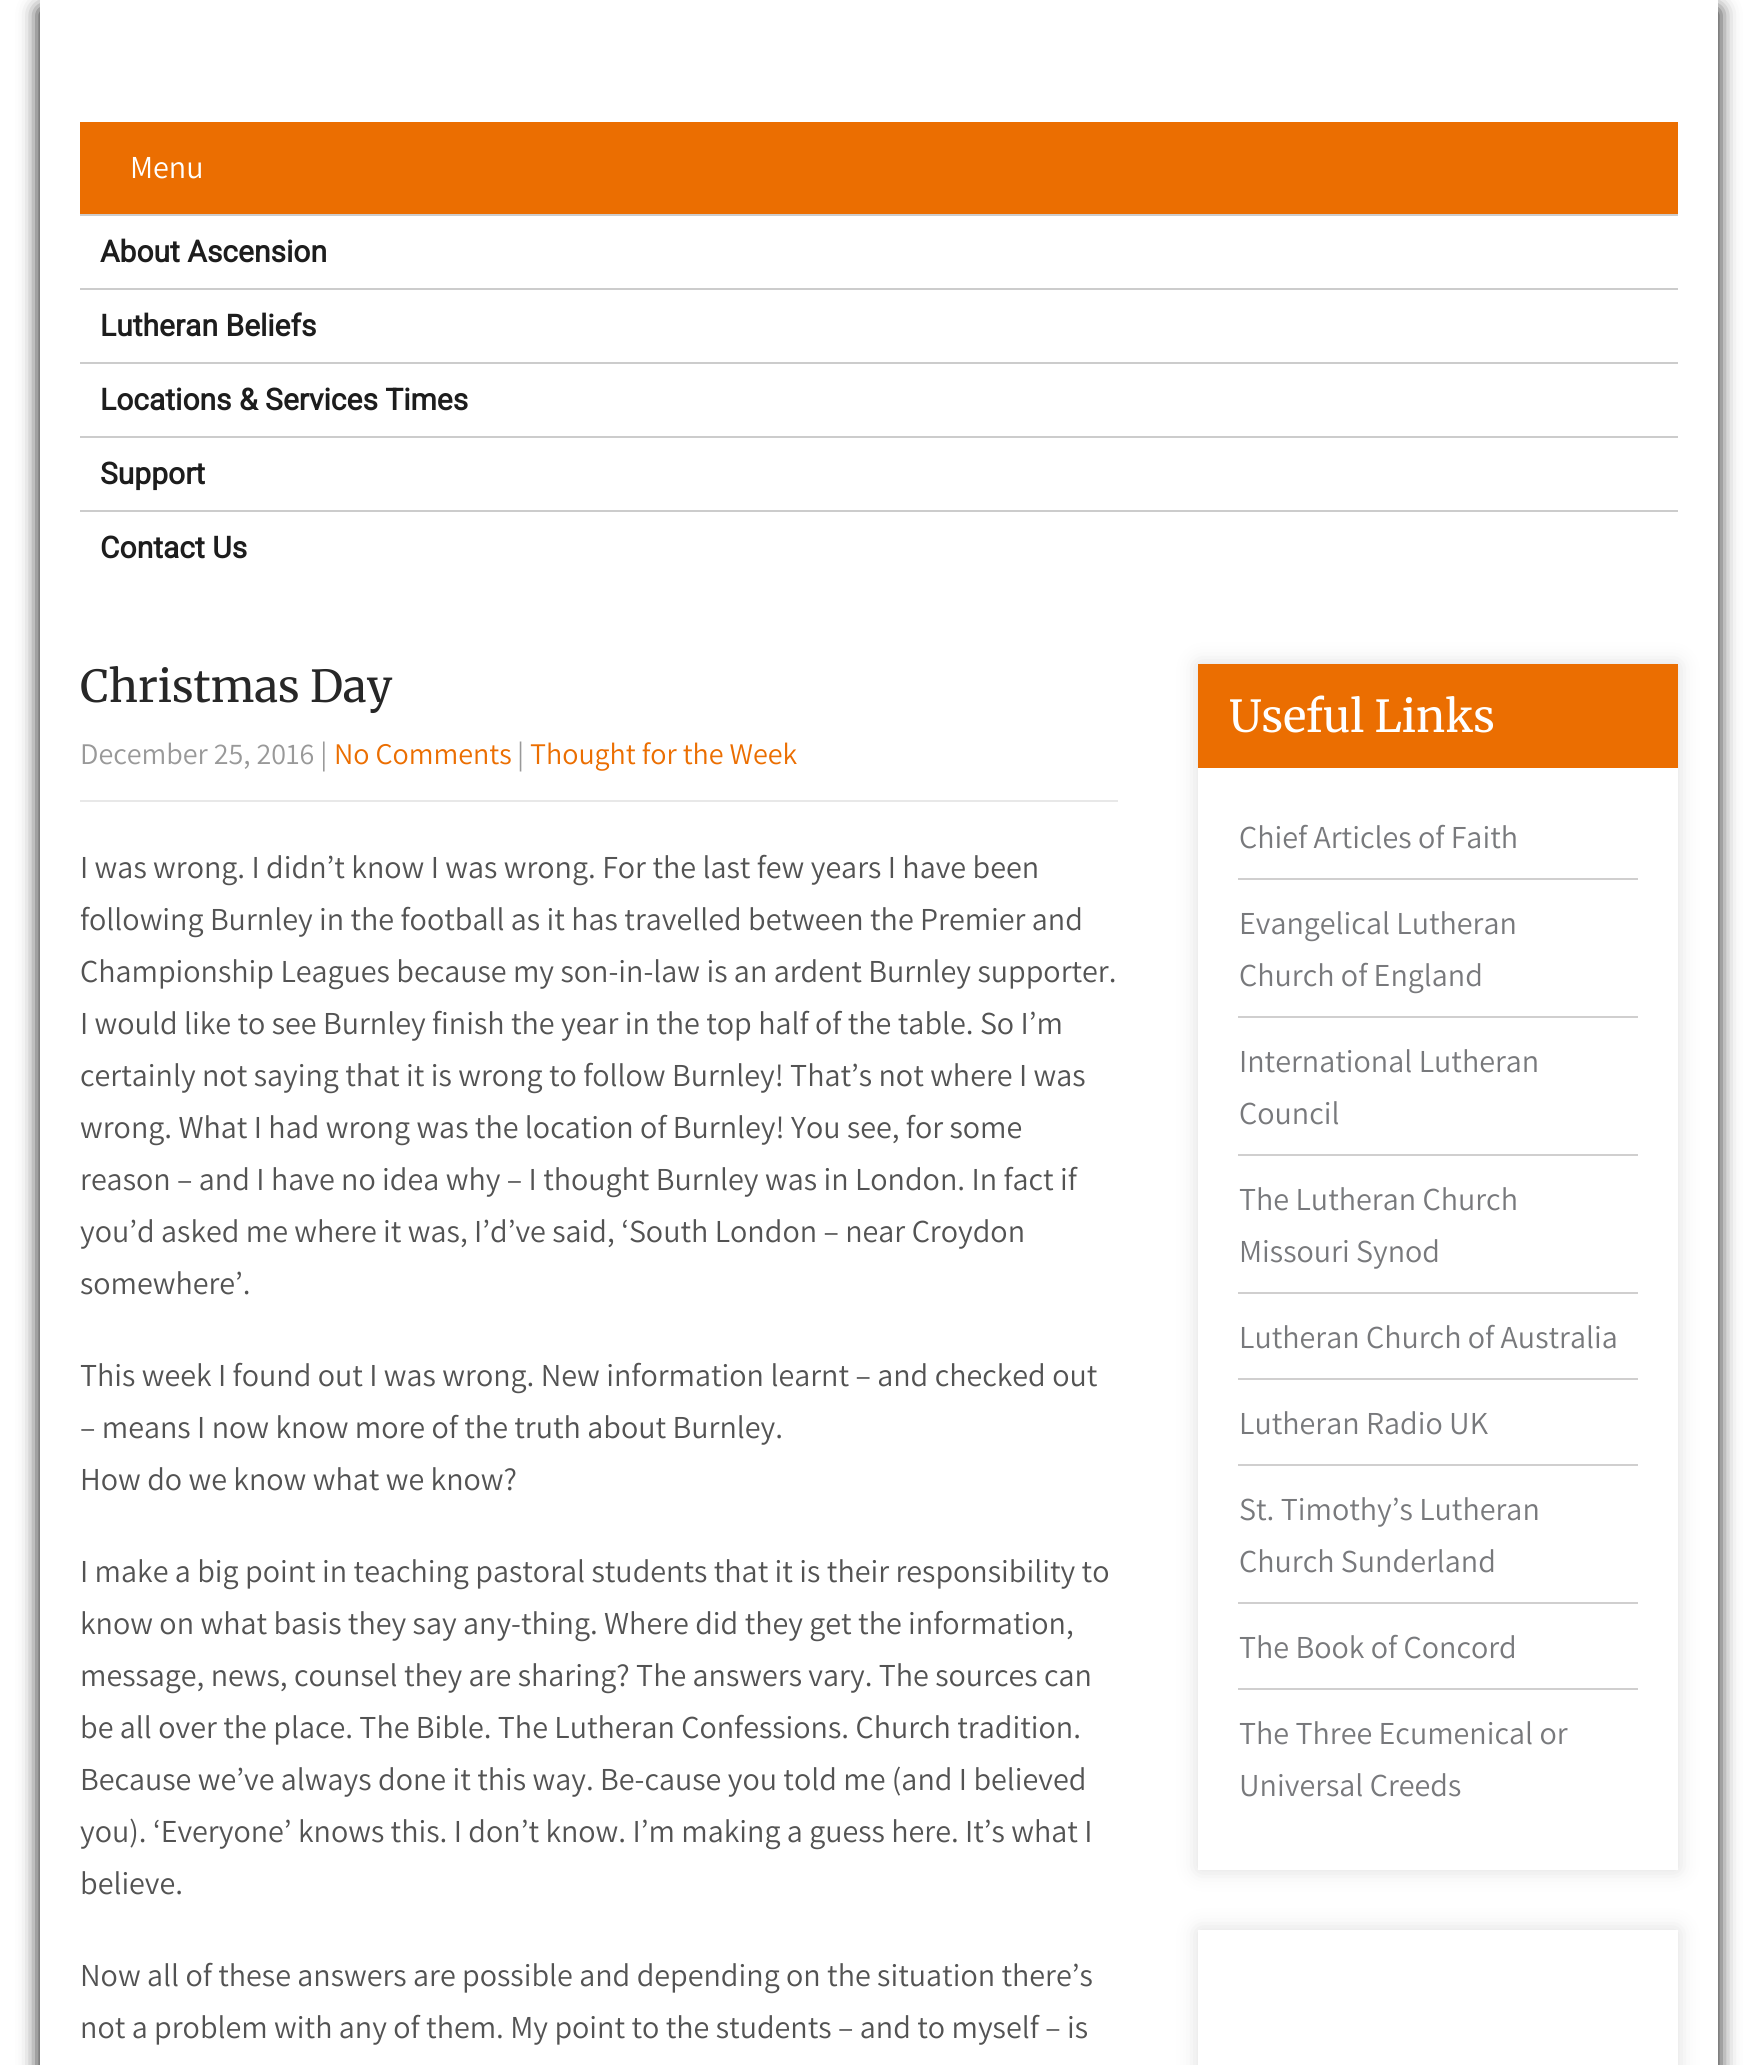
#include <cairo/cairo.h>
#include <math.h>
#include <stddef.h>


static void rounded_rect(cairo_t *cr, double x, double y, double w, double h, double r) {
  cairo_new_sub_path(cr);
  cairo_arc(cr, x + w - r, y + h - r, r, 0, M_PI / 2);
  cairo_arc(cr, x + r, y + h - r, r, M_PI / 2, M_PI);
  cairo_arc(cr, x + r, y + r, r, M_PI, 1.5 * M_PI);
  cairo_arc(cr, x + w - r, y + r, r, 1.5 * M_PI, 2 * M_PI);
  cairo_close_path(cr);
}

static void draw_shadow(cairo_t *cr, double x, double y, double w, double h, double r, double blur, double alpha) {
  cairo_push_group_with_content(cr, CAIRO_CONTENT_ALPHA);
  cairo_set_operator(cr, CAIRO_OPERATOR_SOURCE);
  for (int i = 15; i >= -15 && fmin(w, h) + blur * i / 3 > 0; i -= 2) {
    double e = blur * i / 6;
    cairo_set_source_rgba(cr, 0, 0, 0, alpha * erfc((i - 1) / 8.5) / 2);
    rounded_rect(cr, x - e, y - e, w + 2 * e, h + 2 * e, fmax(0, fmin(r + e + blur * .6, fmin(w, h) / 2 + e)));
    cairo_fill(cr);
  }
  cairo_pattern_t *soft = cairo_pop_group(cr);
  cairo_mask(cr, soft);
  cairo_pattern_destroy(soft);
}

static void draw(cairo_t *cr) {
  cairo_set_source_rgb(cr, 1, 1, 1);
  cairo_paint(cr);
  cairo_save(cr);
  cairo_set_fill_rule(cr, CAIRO_FILL_RULE_EVEN_ODD);
  cairo_new_path(cr);
  cairo_move_to(cr, 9, 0);
  cairo_line_to(cr, 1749, 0);
  cairo_line_to(cr, 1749, 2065);
  cairo_line_to(cr, 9, 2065);
  cairo_close_path(cr);
  cairo_move_to(cr, 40, 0);
  cairo_line_to(cr, 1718, 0);
  cairo_line_to(cr, 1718, 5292);
  cairo_line_to(cr, 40, 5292);
  cairo_close_path(cr);
  cairo_clip(cr);
  cairo_set_source_rgb(cr, 0, 0, 0);
  draw_shadow(cr, 40, 10, 1678, 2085, 0, 10, 1);
  cairo_restore(cr);
  cairo_set_source_rgb(cr, 235 / 255.0, 110 / 255.0, 1 / 255.0);
  cairo_rectangle(cr, 80, 122, 1598, 92);
  cairo_fill(cr);
  cairo_set_source_rgb(cr, 204 / 255.0, 204 / 255.0, 204 / 255.0);
  cairo_rectangle(cr, 80, 214, 1598, 2);
  cairo_fill(cr);
  cairo_rectangle(cr, 80, 288, 1598, 2);
  cairo_fill(cr);
  cairo_rectangle(cr, 80, 362, 1598, 2);
  cairo_fill(cr);
  cairo_rectangle(cr, 80, 436, 1598, 2);
  cairo_fill(cr);
  cairo_rectangle(cr, 80, 510, 1598, 2);
  cairo_fill(cr);
  cairo_set_source_rgb(cr, 232 / 255.0, 232 / 255.0, 232 / 255.0);
  cairo_rectangle(cr, 80, 800, 1038, 2);
  cairo_fill(cr);
  cairo_save(cr);
  cairo_set_fill_rule(cr, CAIRO_FILL_RULE_EVEN_ODD);
  cairo_new_path(cr);
  cairo_move_to(cr, 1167, 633);
  cairo_line_to(cr, 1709, 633);
  cairo_line_to(cr, 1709, 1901);
  cairo_line_to(cr, 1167, 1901);
  cairo_close_path(cr);
  cairo_move_to(cr, 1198, 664);
  cairo_line_to(cr, 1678, 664);
  cairo_line_to(cr, 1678, 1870);
  cairo_line_to(cr, 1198, 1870);
  cairo_close_path(cr);
  cairo_clip(cr);
  cairo_set_source_rgb(cr, 221 / 255.0, 221 / 255.0, 221 / 255.0);
  draw_shadow(cr, 1198, 664, 480, 1206, 0, 10, 1);
  cairo_restore(cr);
  cairo_set_source_rgb(cr, 235 / 255.0, 110 / 255.0, 1 / 255.0);
  cairo_rectangle(cr, 1198, 664, 480, 104);
  cairo_fill(cr);
  cairo_set_source_rgb(cr, 208 / 255.0, 207 / 255.0, 207 / 255.0);
  cairo_rectangle(cr, 1238, 878, 400, 2);
  cairo_fill(cr);
  cairo_rectangle(cr, 1238, 1016, 400, 2);
  cairo_fill(cr);
  cairo_rectangle(cr, 1238, 1154, 400, 2);
  cairo_fill(cr);
  cairo_rectangle(cr, 1238, 1292, 400, 2);
  cairo_fill(cr);
  cairo_rectangle(cr, 1238, 1378, 400, 2);
  cairo_fill(cr);
  cairo_rectangle(cr, 1238, 1464, 400, 2);
  cairo_fill(cr);
  cairo_rectangle(cr, 1238, 1602, 400, 2);
  cairo_fill(cr);
  cairo_rectangle(cr, 1238, 1688, 400, 2);
  cairo_fill(cr);
  cairo_save(cr);
  cairo_set_fill_rule(cr, CAIRO_FILL_RULE_EVEN_ODD);
  cairo_new_path(cr);
  cairo_move_to(cr, 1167, 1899);
  cairo_line_to(cr, 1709, 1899);
  cairo_line_to(cr, 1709, 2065);
  cairo_line_to(cr, 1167, 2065);
  cairo_close_path(cr);
  cairo_move_to(cr, 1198, 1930);
  cairo_line_to(cr, 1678, 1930);
  cairo_line_to(cr, 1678, 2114);
  cairo_line_to(cr, 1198, 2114);
  cairo_close_path(cr);
  cairo_clip(cr);
  cairo_set_source_rgb(cr, 221 / 255.0, 221 / 255.0, 221 / 255.0);
  draw_shadow(cr, 1198, 1930, 480, 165, 0, 10, 1);
  cairo_restore(cr);
  cairo_select_font_face(cr, "Assistant", CAIRO_FONT_SLANT_NORMAL, CAIRO_FONT_WEIGHT_NORMAL);
  cairo_set_font_size(cr, 32);
  cairo_set_source_rgb(cr, 1, 1, 1);
  cairo_move_to(cr, 130, 178);
  cairo_show_text(cr, "Menu");
  cairo_select_font_face(cr, "Roboto", CAIRO_FONT_SLANT_NORMAL, CAIRO_FONT_WEIGHT_BOLD);
  cairo_set_font_size(cr, 30);
  cairo_set_source_rgb(cr, 29 / 255.0, 29 / 255.0, 29 / 255.0);
  cairo_move_to(cr, 100, 262);
  cairo_show_text(cr, "About Ascension");
  cairo_move_to(cr, 100, 336);
  cairo_show_text(cr, "Lutheran Beliefs");
  cairo_move_to(cr, 100, 410);
  cairo_show_text(cr, "Locations & Services Times");
  cairo_move_to(cr, 100, 484);
  cairo_show_text(cr, "Support");
  cairo_move_to(cr, 100, 558);
  cairo_show_text(cr, "Contact Us");
  cairo_select_font_face(cr, "Merriweather", CAIRO_FONT_SLANT_NORMAL, CAIRO_FONT_WEIGHT_NORMAL);
  cairo_set_font_size(cr, 44);
  cairo_set_source_rgb(cr, 39 / 255.0, 39 / 255.0, 39 / 255.0);
  cairo_move_to(cr, 80, 702);
  cairo_show_text(cr, "Christmas Day");
  cairo_select_font_face(cr, "Assistant", CAIRO_FONT_SLANT_NORMAL, CAIRO_FONT_WEIGHT_NORMAL);
  cairo_set_font_size(cr, 30);
  cairo_set_source_rgb(cr, 153 / 255.0, 153 / 255.0, 153 / 255.0);
  cairo_move_to(cr, 80, 764);
  cairo_show_text(cr, "December 25, 2016 |");
  cairo_set_source_rgb(cr, 235 / 255.0, 110 / 255.0, 1 / 255.0);
  cairo_move_to(cr, 334, 764);
  cairo_show_text(cr, "No Comments");
  cairo_set_source_rgb(cr, 153 / 255.0, 153 / 255.0, 153 / 255.0);
  cairo_move_to(cr, 517, 764);
  cairo_show_text(cr, "|");
  cairo_set_source_rgb(cr, 235 / 255.0, 110 / 255.0, 1 / 255.0);
  cairo_move_to(cr, 530, 764);
  cairo_show_text(cr, "Thought for the Week");
  cairo_set_font_size(cr, 32);
  cairo_set_source_rgb(cr, 83 / 255.0, 83 / 255.0, 83 / 255.0);
  cairo_move_to(cr, 80, 878);
  cairo_show_text(cr, "I was wrong. I didn’t know I was wrong. For the last few years I have been");
  cairo_move_to(cr, 80, 930);
  cairo_show_text(cr, "following Burnley in the football as it has travelled between the Premier and");
  cairo_move_to(cr, 80, 982);
  cairo_show_text(cr, "Championship Leagues because my son-in-law is an ardent Burnley supporter.");
  cairo_move_to(cr, 80, 1034);
  cairo_show_text(cr, "I would like to see Burnley finish the year in the top half of the table. So I’m");
  cairo_move_to(cr, 80, 1086);
  cairo_show_text(cr, "certainly not saying that it is wrong to follow Burnley! That’s not where I was");
  cairo_move_to(cr, 80, 1138);
  cairo_show_text(cr, "wrong. What I had wrong was the location of Burnley! You see, for some");
  cairo_move_to(cr, 80, 1190);
  cairo_show_text(cr, "reason – and I have no idea why – I thought Burnley was in London. In fact if");
  cairo_move_to(cr, 80, 1242);
  cairo_show_text(cr, "you’d asked me where it was, I’d’ve said, ‘South London – near Croydon");
  cairo_move_to(cr, 80, 1294);
  cairo_show_text(cr, "somewhere’.");
  cairo_move_to(cr, 80, 1386);
  cairo_show_text(cr, "This week I found out I was wrong. New information learnt – and checked out");
  cairo_move_to(cr, 80, 1438);
  cairo_show_text(cr, "– means I now know more of the truth about Burnley.");
  cairo_move_to(cr, 80, 1490);
  cairo_show_text(cr, "How do we know what we know?");
  cairo_move_to(cr, 80, 1582);
  cairo_show_text(cr, "I make a big point in teaching pastoral students that it is their responsibility to");
  cairo_move_to(cr, 80, 1634);
  cairo_show_text(cr, "know on what basis they say any-thing. Where did they get the information,");
  cairo_move_to(cr, 80, 1686);
  cairo_show_text(cr, "message, news, counsel they are sharing? The answers vary. The sources can");
  cairo_move_to(cr, 80, 1738);
  cairo_show_text(cr, "be all over the place. The Bible. The Lutheran Confessions. Church tradition.");
  cairo_move_to(cr, 80, 1790);
  cairo_show_text(cr, "Because we’ve always done it this way. Be-cause you told me (and I believed");
  cairo_move_to(cr, 80, 1842);
  cairo_show_text(cr, "you). ‘Everyone’ knows this. I don’t know. I’m making a guess here. It’s what I");
  cairo_move_to(cr, 80, 1894);
  cairo_show_text(cr, "believe.");
  cairo_move_to(cr, 80, 1986);
  cairo_show_text(cr, "Now all of these answers are possible and depending on the situation there’s");
  cairo_move_to(cr, 80, 2038);
  cairo_show_text(cr, "not a problem with any of them. My point to the students – and to myself – is");
  cairo_select_font_face(cr, "Merriweather", CAIRO_FONT_SLANT_NORMAL, CAIRO_FONT_WEIGHT_NORMAL);
  cairo_set_font_size(cr, 44);
  cairo_set_source_rgb(cr, 1, 1, 1);
  cairo_move_to(cr, 1229, 732);
  cairo_show_text(cr, "Useful Links");
  cairo_select_font_face(cr, "Assistant", CAIRO_FONT_SLANT_NORMAL, CAIRO_FONT_WEIGHT_NORMAL);
  cairo_set_font_size(cr, 32);
  cairo_set_source_rgb(cr, 120 / 255.0, 121 / 255.0, 124 / 255.0);
  cairo_move_to(cr, 1239, 848);
  cairo_show_text(cr, "Chief Articles of Faith");
  cairo_move_to(cr, 1239, 934);
  cairo_show_text(cr, "Evangelical Lutheran");
  cairo_move_to(cr, 1239, 986);
  cairo_show_text(cr, "Church of England");
  cairo_move_to(cr, 1239, 1072);
  cairo_show_text(cr, "International Lutheran");
  cairo_move_to(cr, 1239, 1124);
  cairo_show_text(cr, "Council");
  cairo_move_to(cr, 1239, 1210);
  cairo_show_text(cr, "The Lutheran Church");
  cairo_move_to(cr, 1239, 1262);
  cairo_show_text(cr, "Missouri Synod");
  cairo_move_to(cr, 1239, 1348);
  cairo_show_text(cr, "Lutheran Church of Australia");
  cairo_move_to(cr, 1239, 1434);
  cairo_show_text(cr, "Lutheran Radio UK");
  cairo_move_to(cr, 1239, 1520);
  cairo_show_text(cr, "St. Timothy’s Lutheran");
  cairo_move_to(cr, 1239, 1572);
  cairo_show_text(cr, "Church Sunderland");
  cairo_move_to(cr, 1239, 1658);
  cairo_show_text(cr, "The Book of Concord");
  cairo_move_to(cr, 1239, 1744);
  cairo_show_text(cr, "The Three Ecumenical or");
  cairo_move_to(cr, 1239, 1796);
  cairo_show_text(cr, "Universal Creeds");
}

int main(void) {
  cairo_surface_t *surface = cairo_image_surface_create(CAIRO_FORMAT_RGB24, 1757, 2065);
  cairo_t *cr = cairo_create(surface);
  cairo_font_options_t *options = cairo_font_options_create();
  cairo_font_options_set_hint_metrics(options, CAIRO_HINT_METRICS_OFF);
  cairo_font_options_set_hint_style(options, CAIRO_HINT_STYLE_NONE);
  cairo_set_font_options(cr, options);
  cairo_set_miter_limit(cr, 4);
  draw(cr);
  cairo_surface_write_to_png(surface, "out.png");
  cairo_font_options_destroy(options);
  cairo_destroy(cr);
  cairo_surface_destroy(surface);
  return 0;
}
